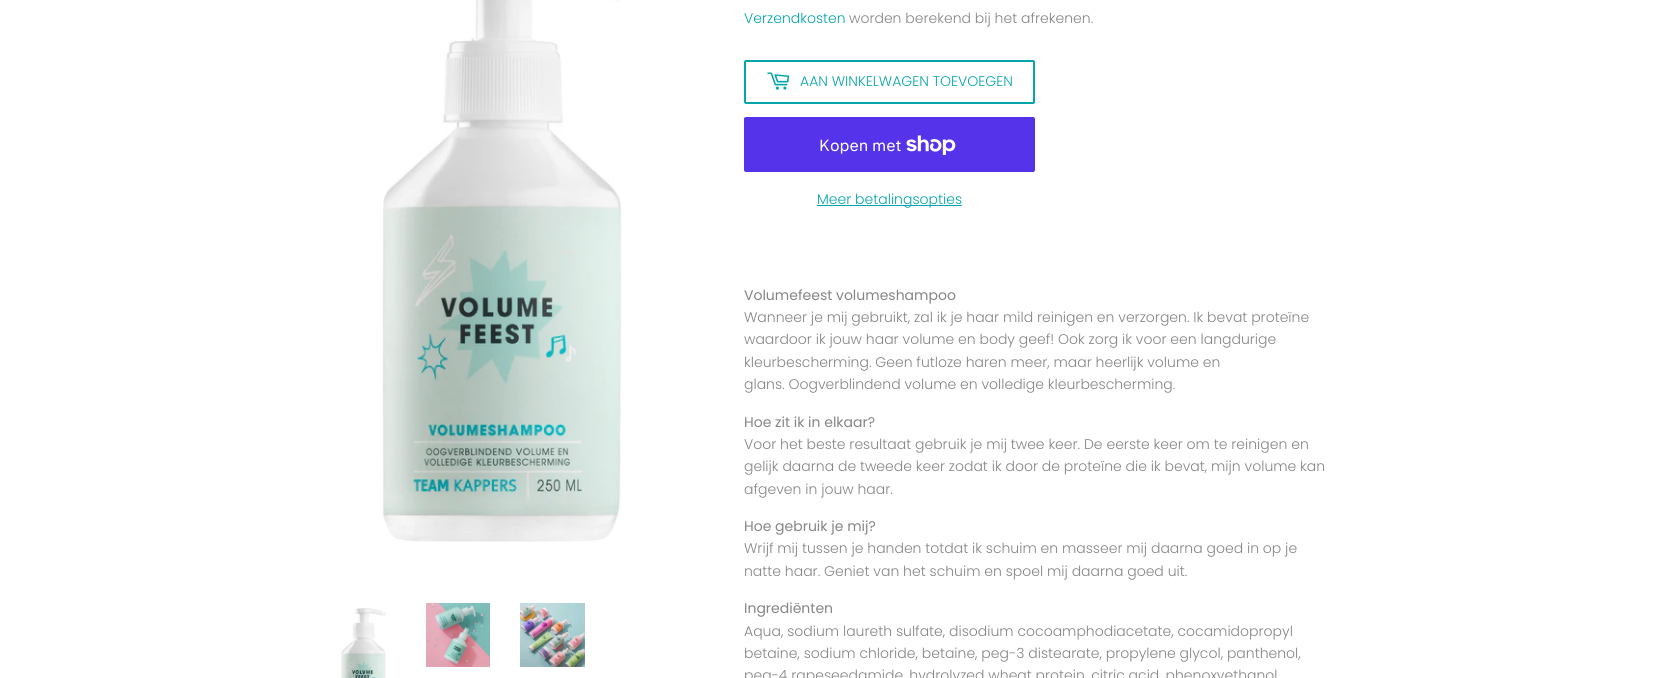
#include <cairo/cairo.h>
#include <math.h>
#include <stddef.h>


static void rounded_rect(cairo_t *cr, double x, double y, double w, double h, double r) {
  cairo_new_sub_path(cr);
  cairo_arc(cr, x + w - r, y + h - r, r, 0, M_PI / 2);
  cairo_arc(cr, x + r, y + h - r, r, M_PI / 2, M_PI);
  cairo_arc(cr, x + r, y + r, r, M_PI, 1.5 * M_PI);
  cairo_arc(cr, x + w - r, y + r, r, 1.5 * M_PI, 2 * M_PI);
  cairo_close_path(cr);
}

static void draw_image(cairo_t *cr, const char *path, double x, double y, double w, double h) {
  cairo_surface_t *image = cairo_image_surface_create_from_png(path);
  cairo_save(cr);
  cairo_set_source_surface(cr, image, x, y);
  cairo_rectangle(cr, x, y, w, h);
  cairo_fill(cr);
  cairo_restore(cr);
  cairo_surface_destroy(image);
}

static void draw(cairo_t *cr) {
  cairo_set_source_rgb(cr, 1, 1, 1);
  cairo_paint(cr);
  draw_image(cr, "images/1.png", 382, 0, 240, 542);
  draw_image(cr, "images/2.png", 341, 608, 45, 70);
  draw_image(cr, "images/3.png", 426, 603, 64, 64);
  draw_image(cr, "images/4.png", 520, 603, 65, 64);
  rounded_rect(cr, 745, 61, 289, 42, 1);
  cairo_set_source_rgb(cr, 5 / 255.0, 165 / 255.0, 171 / 255.0);
  cairo_stroke(cr);
  draw_image(cr, "images/5.png", 767, 72, 23, 18);
  cairo_set_source_rgb(cr, 84 / 255.0, 51 / 255.0, 235 / 255.0);
  rounded_rect(cr, 744, 117, 291, 55, 2);
  cairo_fill(cr);
  draw_image(cr, "images/6.png", 906, 135, 50, 20);
  cairo_set_source_rgb(cr, 5 / 255.0, 165 / 255.0, 171 / 255.0);
  cairo_rectangle(cr, 817, 205, 145, 1);
  cairo_fill(cr);
  cairo_select_font_face(cr, "Poppins Light", CAIRO_FONT_SLANT_NORMAL, CAIRO_FONT_WEIGHT_NORMAL);
  cairo_set_font_size(cr, 14);
  cairo_move_to(cr, 744, 23);
  cairo_show_text(cr, "Verzendkosten");
  cairo_set_source_rgb(cr, 133 / 255.0, 133 / 255.0, 133 / 255.0);
  cairo_move_to(cr, 849, 23);
  cairo_show_text(cr, "worden berekend bij het afrekenen.");
  cairo_set_source_rgb(cr, 5 / 255.0, 165 / 255.0, 171 / 255.0);
  cairo_move_to(cr, 800, 86);
  cairo_show_text(cr, "AAN WINKELWAGEN TOEVOEGEN");
  cairo_select_font_face(cr, "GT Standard", CAIRO_FONT_SLANT_NORMAL, CAIRO_FONT_WEIGHT_NORMAL);
  cairo_set_font_size(cr, 16);
  cairo_set_source_rgb(cr, 1, 1, 1);
  cairo_move_to(cr, 819, 151);
  cairo_show_text(cr, "Kopen met");
  cairo_select_font_face(cr, "Poppins Light", CAIRO_FONT_SLANT_NORMAL, CAIRO_FONT_WEIGHT_NORMAL);
  cairo_set_font_size(cr, 14);
  cairo_set_source_rgb(cr, 5 / 255.0, 165 / 255.0, 171 / 255.0);
  cairo_move_to(cr, 817, 204);
  cairo_show_text(cr, "Meer betalingsopties");
  cairo_select_font_face(cr, "Poppins", CAIRO_FONT_SLANT_NORMAL, CAIRO_FONT_WEIGHT_NORMAL);
  cairo_set_source_rgb(cr, 133 / 255.0, 133 / 255.0, 133 / 255.0);
  cairo_move_to(cr, 744, 300);
  cairo_show_text(cr, "Volumefeest volumeshampoo");
  cairo_select_font_face(cr, "Poppins Light", CAIRO_FONT_SLANT_NORMAL, CAIRO_FONT_WEIGHT_NORMAL);
  cairo_move_to(cr, 744, 322);
  cairo_show_text(cr, "Wanneer je mij gebruikt, zal ik je haar mild reinigen en verzorgen. Ik bevat proteïne");
  cairo_move_to(cr, 744, 344);
  cairo_show_text(cr, "waardoor ik jouw haar volume en body geef! Ook zorg ik voor een langdurige");
  cairo_move_to(cr, 744, 367);
  cairo_show_text(cr, "kleurbescherming. Geen futloze haren meer, maar heerlijk volume en");
  cairo_move_to(cr, 744, 389);
  cairo_show_text(cr, "glans. Oogverblindend volume en volledige kleurbescherming.");
  cairo_select_font_face(cr, "Poppins", CAIRO_FONT_SLANT_NORMAL, CAIRO_FONT_WEIGHT_NORMAL);
  cairo_move_to(cr, 744, 427);
  cairo_show_text(cr, "Hoe zit ik in elkaar?");
  cairo_select_font_face(cr, "Poppins Light", CAIRO_FONT_SLANT_NORMAL, CAIRO_FONT_WEIGHT_NORMAL);
  cairo_move_to(cr, 744, 449);
  cairo_show_text(cr, "Voor het beste resultaat gebruik je mij twee keer. De eerste keer om te reinigen en");
  cairo_move_to(cr, 744, 471);
  cairo_show_text(cr, "gelijk daarna de tweede keer zodat ik door de proteïne die ik bevat, mijn volume kan");
  cairo_move_to(cr, 744, 494);
  cairo_show_text(cr, "afgeven in jouw haar.");
  cairo_select_font_face(cr, "Poppins", CAIRO_FONT_SLANT_NORMAL, CAIRO_FONT_WEIGHT_NORMAL);
  cairo_move_to(cr, 744, 531);
  cairo_show_text(cr, "Hoe gebruik je mij?");
  cairo_select_font_face(cr, "Poppins Light", CAIRO_FONT_SLANT_NORMAL, CAIRO_FONT_WEIGHT_NORMAL);
  cairo_move_to(cr, 744, 553);
  cairo_show_text(cr, "Wrijf mij tussen je handen totdat ik schuim en masseer mij daarna goed in op je");
  cairo_move_to(cr, 744, 576);
  cairo_show_text(cr, "natte haar. Geniet van het schuim en spoel mij daarna goed uit.");
  cairo_select_font_face(cr, "Poppins", CAIRO_FONT_SLANT_NORMAL, CAIRO_FONT_WEIGHT_NORMAL);
  cairo_move_to(cr, 744, 613);
  cairo_show_text(cr, "Ingrediënten");
  cairo_select_font_face(cr, "Poppins Light", CAIRO_FONT_SLANT_NORMAL, CAIRO_FONT_WEIGHT_NORMAL);
  cairo_move_to(cr, 744, 636);
  cairo_show_text(cr, "Aqua, sodium laureth sulfate, disodium cocoamphodiacetate, cocamidopropyl");
  cairo_move_to(cr, 744, 658);
  cairo_show_text(cr, "betaine, sodium chloride, betaine, peg-3 distearate, propylene glycol, panthenol,");
  cairo_move_to(cr, 744, 680);
  cairo_show_text(cr, "peg-4 rapeseedamide, hydrolyzed wheat protein, citric acid, phenoxyethanol");
}

int main(void) {
  cairo_surface_t *surface = cairo_image_surface_create(CAIRO_FORMAT_RGB24, 1663, 678);
  cairo_t *cr = cairo_create(surface);
  cairo_font_options_t *options = cairo_font_options_create();
  cairo_font_options_set_hint_metrics(options, CAIRO_HINT_METRICS_OFF);
  cairo_font_options_set_hint_style(options, CAIRO_HINT_STYLE_NONE);
  cairo_set_font_options(cr, options);
  cairo_set_miter_limit(cr, 4);
  draw(cr);
  cairo_surface_write_to_png(surface, "out.png");
  cairo_font_options_destroy(options);
  cairo_destroy(cr);
  cairo_surface_destroy(surface);
  return 0;
}
